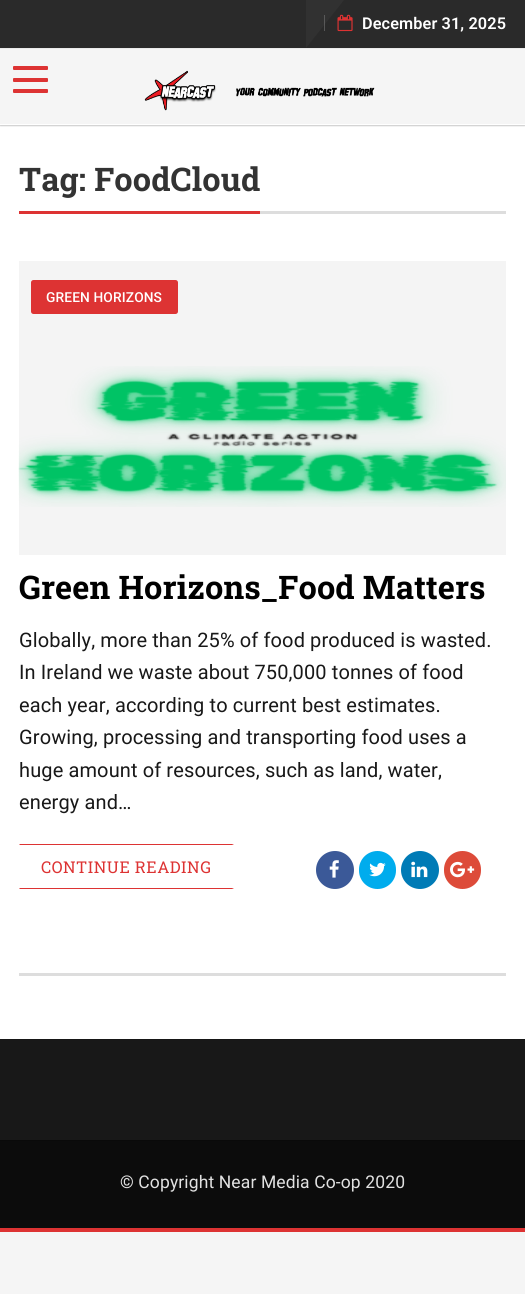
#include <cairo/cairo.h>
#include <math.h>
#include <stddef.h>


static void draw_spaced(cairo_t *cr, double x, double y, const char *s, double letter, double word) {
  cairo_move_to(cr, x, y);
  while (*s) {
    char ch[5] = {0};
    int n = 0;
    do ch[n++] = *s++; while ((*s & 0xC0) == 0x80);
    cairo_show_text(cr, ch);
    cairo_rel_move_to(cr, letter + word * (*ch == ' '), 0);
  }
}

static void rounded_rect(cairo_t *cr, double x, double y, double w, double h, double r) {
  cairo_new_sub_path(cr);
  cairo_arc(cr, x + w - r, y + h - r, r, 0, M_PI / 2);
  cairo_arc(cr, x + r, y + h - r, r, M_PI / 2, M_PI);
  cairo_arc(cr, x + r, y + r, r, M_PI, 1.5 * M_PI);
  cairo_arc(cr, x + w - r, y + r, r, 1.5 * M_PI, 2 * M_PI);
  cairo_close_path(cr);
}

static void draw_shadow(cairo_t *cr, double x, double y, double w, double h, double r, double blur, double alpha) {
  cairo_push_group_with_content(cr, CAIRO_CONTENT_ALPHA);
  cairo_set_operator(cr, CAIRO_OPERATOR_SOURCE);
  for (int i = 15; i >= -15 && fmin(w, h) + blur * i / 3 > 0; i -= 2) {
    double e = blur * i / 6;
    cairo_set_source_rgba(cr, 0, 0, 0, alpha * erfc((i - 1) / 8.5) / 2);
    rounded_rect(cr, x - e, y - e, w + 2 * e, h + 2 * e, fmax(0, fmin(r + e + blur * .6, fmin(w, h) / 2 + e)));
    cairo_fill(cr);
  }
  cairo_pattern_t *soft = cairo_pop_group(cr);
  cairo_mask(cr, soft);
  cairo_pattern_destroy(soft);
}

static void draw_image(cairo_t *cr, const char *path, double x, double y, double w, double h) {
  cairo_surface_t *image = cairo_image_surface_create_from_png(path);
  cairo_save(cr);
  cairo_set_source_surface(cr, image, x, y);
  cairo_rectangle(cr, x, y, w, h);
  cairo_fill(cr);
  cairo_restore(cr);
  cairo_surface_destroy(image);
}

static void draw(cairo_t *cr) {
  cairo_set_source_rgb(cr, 245 / 255.0, 245 / 255.0, 245 / 255.0);
  cairo_paint(cr);
  cairo_set_source_rgb(cr, 1, 1, 1);
  cairo_rectangle(cr, 0, 125, 525, 914);
  cairo_fill(cr);
  cairo_set_source_rgb(cr, 0, 0, 0);
  draw_shadow(cr, 0, 50, 525, 76, 0, 0.5, 0.2);
  cairo_set_source_rgb(cr, 42 / 255.0, 42 / 255.0, 42 / 255.0);
  cairo_rectangle(cr, 0, 0, 306, 48);
  cairo_fill(cr);
  cairo_set_source_rgb(cr, 234 / 255.0, 234 / 255.0, 234 / 255.0);
  cairo_rectangle(cr, 0, 48, 525, 1);
  cairo_fill(cr);
  cairo_set_source_rgb(cr, 49 / 255.0, 49 / 255.0, 49 / 255.0);
  cairo_rectangle(cr, 306, 0, 38, 48);
  cairo_fill(cr);
  cairo_set_source_rgb(cr, 42 / 255.0, 42 / 255.0, 42 / 255.0);
  cairo_new_path(cr);
  cairo_move_to(cr, 525, 48);
  cairo_line_to(cr, 306, 48);
  cairo_line_to(cr, 344, 0);
  cairo_line_to(cr, 525, 0);
  cairo_close_path(cr);
  cairo_fill(cr);
  cairo_set_source_rgba(cr, 109 / 255.0, 109 / 255.0, 109 / 255.0, 0.66);
  cairo_rectangle(cr, 324, 15, 1, 16);
  cairo_fill(cr);
  draw_image(cr, "images/1.png", 337, 14, 16, 18);
  cairo_set_source_rgb(cr, 245 / 255.0, 245 / 255.0, 245 / 255.0);
  cairo_rectangle(cr, 0, 49, 525, 75);
  cairo_fill(cr);
  cairo_set_source_rgb(cr, 1, 1, 1);
  cairo_rectangle(cr, 0, 124, 525, 1);
  cairo_fill(cr);
  cairo_set_source_rgb(cr, 221 / 255.0, 51 / 255.0, 51 / 255.0);
  rounded_rect(cr, 13, 78, 35, 4, 1);
  cairo_fill(cr);
  rounded_rect(cr, 13, 66, 35, 4, 1);
  cairo_fill(cr);
  rounded_rect(cr, 13, 89, 35, 4, 1);
  cairo_fill(cr);
  draw_image(cr, "images/2.png", 144, 70, 231, 41);
  cairo_rectangle(cr, 19, 211, 241, 3);
  cairo_fill(cr);
  cairo_set_source_rgb(cr, 221 / 255.0, 221 / 255.0, 221 / 255.0);
  cairo_rectangle(cr, 260, 211, 246, 3);
  cairo_fill(cr);
  cairo_set_source_rgb(cr, 244 / 255.0, 244 / 255.0, 244 / 255.0);
  cairo_rectangle(cr, 19, 261, 487, 294);
  cairo_fill(cr);
  draw_image(cr, "images/3.png", 18, 366, 488, 141);
  cairo_set_source_rgb(cr, 221 / 255.0, 51 / 255.0, 51 / 255.0);
  rounded_rect(cr, 31, 280, 147, 34, 2.5);
  cairo_fill(cr);
  cairo_new_path(cr);
  cairo_move_to(cr, 19, 844);
  cairo_line_to(cr, 234, 844);
  cairo_line_to(cr, 232, 845);
  cairo_line_to(cr, 20, 845);
  cairo_close_path(cr);
  cairo_fill(cr);
  cairo_new_path(cr);
  cairo_move_to(cr, 234, 889);
  cairo_line_to(cr, 19, 889);
  cairo_line_to(cr, 20, 888);
  cairo_line_to(cr, 232, 888);
  cairo_close_path(cr);
  cairo_fill(cr);
  cairo_set_source_rgb(cr, 59 / 255.0, 89 / 255.0, 152 / 255.0);
  cairo_arc(cr, 335, 870, 19, 0, 2 * M_PI);
  cairo_fill(cr);
  draw_image(cr, "images/4.png", 329, 860, 10, 18);
  cairo_set_source_rgb(cr, 0, 172 / 255.0, 237 / 255.0);
  rounded_rect(cr, 359, 851, 37, 38, 18.5);
  cairo_fill(cr);
  draw_image(cr, "images/5.png", 369, 862, 17, 15);
  cairo_set_source_rgb(cr, 0, 123 / 255.0, 182 / 255.0);
  cairo_arc(cr, 420, 870, 19, 0, 2 * M_PI);
  cairo_fill(cr);
  draw_image(cr, "images/6.png", 411, 861, 17, 17);
  cairo_set_source_rgb(cr, 221 / 255.0, 75 / 255.0, 57 / 255.0);
  rounded_rect(cr, 444, 851, 37, 38, 18.5);
  cairo_fill(cr);
  draw_image(cr, "images/7.png", 450, 861, 25, 17);
  cairo_set_source_rgb(cr, 221 / 255.0, 221 / 255.0, 221 / 255.0);
  cairo_rectangle(cr, 19, 973, 487, 3);
  cairo_fill(cr);
  cairo_set_source_rgb(cr, 24 / 255.0, 24 / 255.0, 24 / 255.0);
  cairo_rectangle(cr, 0, 1040, 525, 100);
  cairo_fill(cr);
  cairo_set_source_rgb(cr, 22 / 255.0, 22 / 255.0, 22 / 255.0);
  cairo_rectangle(cr, 0, 1039, 525, 1);
  cairo_fill(cr);
  cairo_set_source_rgb(cr, 12 / 255.0, 12 / 255.0, 12 / 255.0);
  cairo_rectangle(cr, 0, 1141, 525, 87);
  cairo_fill(cr);
  cairo_set_source_rgb(cr, 10 / 255.0, 10 / 255.0, 10 / 255.0);
  cairo_rectangle(cr, 0, 1140, 525, 1);
  cairo_fill(cr);
  cairo_set_source_rgb(cr, 221 / 255.0, 51 / 255.0, 51 / 255.0);
  cairo_rectangle(cr, 0, 1228, 525, 4);
  cairo_fill(cr);
  cairo_select_font_face(cr, "Roboto SemiBold", CAIRO_FONT_SLANT_NORMAL, CAIRO_FONT_WEIGHT_NORMAL);
  cairo_set_font_size(cr, 16.25);
  cairo_set_source_rgb(cr, 1, 1, 1);
  draw_spaced(cr, 362, 29, "December 31, 2025", 0.12, 0);
  cairo_select_font_face(cr, "Roboto Slab", CAIRO_FONT_SLANT_NORMAL, CAIRO_FONT_WEIGHT_BOLD);
  cairo_set_font_size(cr, 32.5);
  cairo_set_source_rgb(cr, 51 / 255.0, 51 / 255.0, 51 / 255.0);
  draw_spaced(cr, 19, 191, "Tag: FoodCloud", 0.12, 0);
  cairo_select_font_face(cr, "Roboto Medium", CAIRO_FONT_SLANT_NORMAL, CAIRO_FONT_WEIGHT_NORMAL);
  cairo_set_font_size(cr, 13.75);
  cairo_set_source_rgb(cr, 1, 1, 1);
  draw_spaced(cr, 46, 302, "GREEN HORIZONS", 0.12, 0);
  cairo_select_font_face(cr, "Roboto Slab", CAIRO_FONT_SLANT_NORMAL, CAIRO_FONT_WEIGHT_BOLD);
  cairo_set_font_size(cr, 32.5);
  cairo_set_source_rgb(cr, 0, 0, 0);
  draw_spaced(cr, 19, 599, "Green Horizons_Food Matters", 0.12, 0);
  cairo_select_font_face(cr, "Roboto", CAIRO_FONT_SLANT_NORMAL, CAIRO_FONT_WEIGHT_NORMAL);
  cairo_set_font_size(cr, 20);
  cairo_set_source_rgb(cr, 24 / 255.0, 24 / 255.0, 24 / 255.0);
  draw_spaced(cr, 19, 647, "Globally, more than 25% of food produced is wasted.", 0.12, 0);
  draw_spaced(cr, 19, 679, "In Ireland we waste about 750,000 tonnes of food", 0.12, 0);
  draw_spaced(cr, 19, 712, "each year, according to current best estimates.", 0.12, 0);
  draw_spaced(cr, 19, 744, "Growing, processing and transporting food uses a", 0.12, 0);
  draw_spaced(cr, 19, 777, "huge amount of resources, such as land, water,", 0.12, 0);
  draw_spaced(cr, 19, 809, "energy and…", 0.12, 0);
  cairo_select_font_face(cr, "Roboto Slab", CAIRO_FONT_SLANT_NORMAL, CAIRO_FONT_WEIGHT_NORMAL);
  cairo_set_font_size(cr, 16.25);
  cairo_set_source_rgb(cr, 221 / 255.0, 51 / 255.0, 51 / 255.0);
  draw_spaced(cr, 41, 873, "CONTINUE READING", 0.5, 0);
  cairo_select_font_face(cr, "Roboto", CAIRO_FONT_SLANT_NORMAL, CAIRO_FONT_WEIGHT_NORMAL);
  cairo_set_font_size(cr, 17.5);
  cairo_set_source_rgb(cr, 226 / 255.0, 226 / 255.0, 226 / 255.0);
  draw_spaced(cr, 120, 1188, "© Copyright Near Media Co-op 2020", 0.12, 0);
}

int main(void) {
  cairo_surface_t *surface = cairo_image_surface_create(CAIRO_FORMAT_RGB24, 525, 1294);
  cairo_t *cr = cairo_create(surface);
  cairo_font_options_t *options = cairo_font_options_create();
  cairo_font_options_set_hint_metrics(options, CAIRO_HINT_METRICS_OFF);
  cairo_font_options_set_hint_style(options, CAIRO_HINT_STYLE_NONE);
  cairo_set_font_options(cr, options);
  cairo_set_miter_limit(cr, 4);
  draw(cr);
  cairo_surface_write_to_png(surface, "out.png");
  cairo_font_options_destroy(options);
  cairo_destroy(cr);
  cairo_surface_destroy(surface);
  return 0;
}
